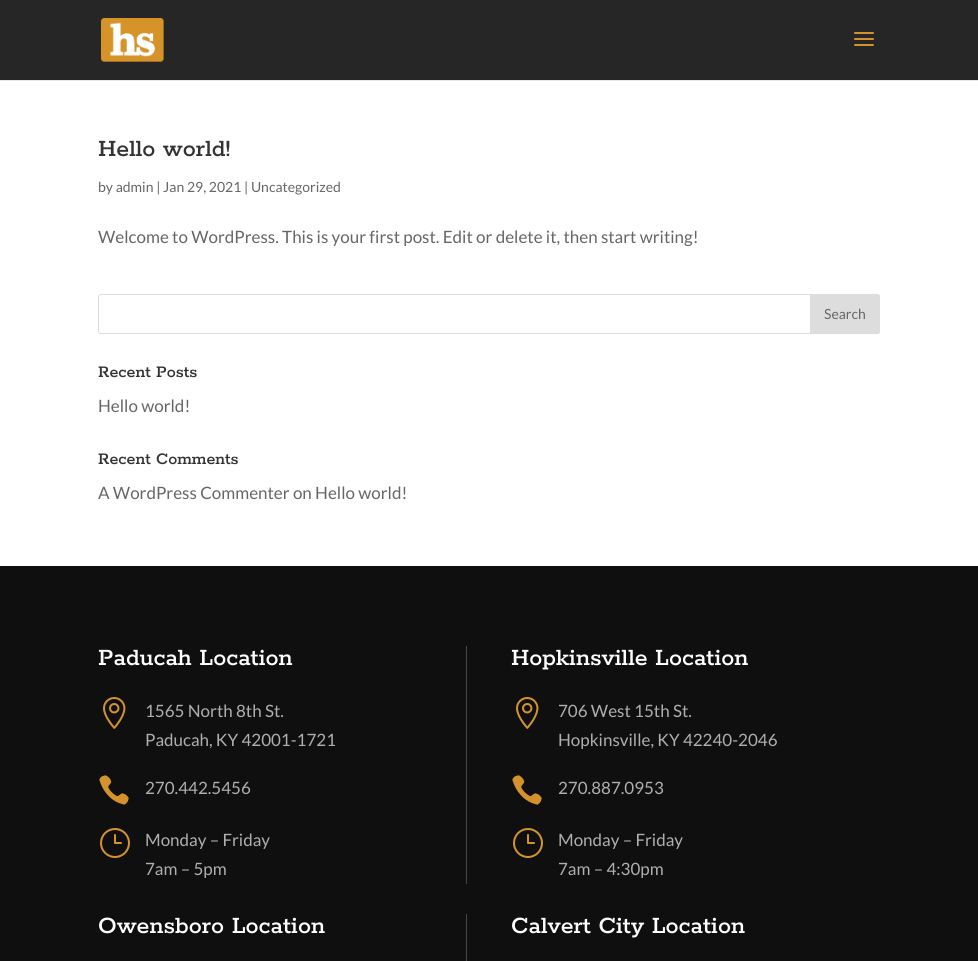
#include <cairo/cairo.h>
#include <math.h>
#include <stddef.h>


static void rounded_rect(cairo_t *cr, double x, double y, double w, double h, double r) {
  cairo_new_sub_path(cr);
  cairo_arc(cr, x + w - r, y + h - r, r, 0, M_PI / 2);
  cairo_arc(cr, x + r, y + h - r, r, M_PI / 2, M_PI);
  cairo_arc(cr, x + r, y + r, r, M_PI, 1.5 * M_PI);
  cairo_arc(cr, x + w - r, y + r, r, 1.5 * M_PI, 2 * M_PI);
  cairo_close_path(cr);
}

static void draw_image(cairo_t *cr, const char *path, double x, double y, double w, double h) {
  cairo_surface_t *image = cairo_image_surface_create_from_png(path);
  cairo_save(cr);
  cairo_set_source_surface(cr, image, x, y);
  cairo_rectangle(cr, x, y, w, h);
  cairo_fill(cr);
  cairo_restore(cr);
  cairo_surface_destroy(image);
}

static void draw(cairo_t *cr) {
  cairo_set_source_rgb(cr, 1, 1, 1);
  cairo_paint(cr);
  cairo_set_source_rgb(cr, 230 / 255.0, 230 / 255.0, 230 / 255.0);
  cairo_rectangle(cr, 0, 80, 978, 1);
  cairo_fill(cr);
  cairo_set_source_rgb(cr, 38 / 255.0, 38 / 255.0, 38 / 255.0);
  cairo_rectangle(cr, 0, 0, 978, 80);
  cairo_fill(cr);
  draw_image(cr, "images/1.png", 101, 18, 63, 44);
  draw_image(cr, "images/2.png", 854, 32, 20, 14);
  rounded_rect(cr, 98.5, 294.5, 781, 39, 2.5);
  cairo_set_source_rgb(cr, 221 / 255.0, 221 / 255.0, 221 / 255.0);
  cairo_set_line_width(cr, 1);
  cairo_stroke(cr);
  cairo_new_path(cr);
  cairo_move_to(cr, 810.5, 294.5);
  cairo_line_to(cr, 877, 294.5);
  cairo_curve_to(cr, 878.5, 294.5, 879.5, 295.5, 879.5, 297);
  cairo_line_to(cr, 879.5, 331);
  cairo_curve_to(cr, 879.5, 332.5, 878.5, 333.5, 877, 333.5);
  cairo_line_to(cr, 810.5, 333.5);
  cairo_close_path(cr);
  cairo_fill_preserve(cr);
  cairo_stroke(cr);
  cairo_set_source_rgb(cr, 15 / 255.0, 15 / 255.0, 15 / 255.0);
  cairo_rectangle(cr, 0, 566, 978, 395);
  cairo_fill(cr);
  cairo_set_source_rgb(cr, 70 / 255.0, 70 / 255.0, 70 / 255.0);
  cairo_rectangle(cr, 466, 646, 1, 238);
  cairo_fill(cr);
  draw_image(cr, "images/3.png", 103, 697, 23, 32);
  draw_image(cr, "images/4.png", 99, 775, 30, 30);
  draw_image(cr, "images/5.png", 100, 828, 30, 30);
  draw_image(cr, "images/3.png", 516, 697, 23, 32);
  draw_image(cr, "images/4.png", 512, 775, 30, 30);
  draw_image(cr, "images/5.png", 513, 828, 30, 30);
  cairo_rectangle(cr, 466, 914, 1, 47);
  cairo_fill(cr);
  cairo_select_font_face(cr, "Rokkitt Medium", CAIRO_FONT_SLANT_NORMAL, CAIRO_FONT_WEIGHT_NORMAL);
  cairo_set_font_size(cr, 26);
  cairo_set_source_rgb(cr, 51 / 255.0, 51 / 255.0, 51 / 255.0);
  cairo_move_to(cr, 98, 156);
  cairo_show_text(cr, "Hello world!");
  cairo_select_font_face(cr, "Lato", CAIRO_FONT_SLANT_NORMAL, CAIRO_FONT_WEIGHT_NORMAL);
  cairo_set_font_size(cr, 14);
  cairo_set_source_rgb(cr, 102 / 255.0, 102 / 255.0, 102 / 255.0);
  cairo_move_to(cr, 98, 192);
  cairo_show_text(cr, "by admin | Jan 29, 2021 | Uncategorized");
  cairo_set_font_size(cr, 17);
  cairo_move_to(cr, 98, 243);
  cairo_show_text(cr, "Welcome to WordPress. This is your first post. Edit or delete it, then start writing!");
  cairo_set_font_size(cr, 14);
  cairo_move_to(cr, 824, 319);
  cairo_show_text(cr, "Search");
  cairo_select_font_face(cr, "Rokkitt Medium", CAIRO_FONT_SLANT_NORMAL, CAIRO_FONT_WEIGHT_NORMAL);
  cairo_set_font_size(cr, 18);
  cairo_set_source_rgb(cr, 51 / 255.0, 51 / 255.0, 51 / 255.0);
  cairo_move_to(cr, 98, 377);
  cairo_show_text(cr, "Recent Posts");
  cairo_select_font_face(cr, "Lato", CAIRO_FONT_SLANT_NORMAL, CAIRO_FONT_WEIGHT_NORMAL);
  cairo_set_font_size(cr, 17);
  cairo_set_source_rgb(cr, 102 / 255.0, 102 / 255.0, 102 / 255.0);
  cairo_move_to(cr, 98, 412);
  cairo_show_text(cr, "Hello world!");
  cairo_select_font_face(cr, "Rokkitt Medium", CAIRO_FONT_SLANT_NORMAL, CAIRO_FONT_WEIGHT_NORMAL);
  cairo_set_font_size(cr, 18);
  cairo_set_source_rgb(cr, 51 / 255.0, 51 / 255.0, 51 / 255.0);
  cairo_move_to(cr, 98, 464);
  cairo_show_text(cr, "Recent Comments");
  cairo_select_font_face(cr, "Lato", CAIRO_FONT_SLANT_NORMAL, CAIRO_FONT_WEIGHT_NORMAL);
  cairo_set_font_size(cr, 17);
  cairo_set_source_rgb(cr, 102 / 255.0, 102 / 255.0, 102 / 255.0);
  cairo_move_to(cr, 98, 499);
  cairo_show_text(cr, "A WordPress Commenter on Hello world!");
  cairo_select_font_face(cr, "Rokkitt Medium", CAIRO_FONT_SLANT_NORMAL, CAIRO_FONT_WEIGHT_NORMAL);
  cairo_set_font_size(cr, 26);
  cairo_set_source_rgb(cr, 1, 1, 1);
  cairo_move_to(cr, 98, 665);
  cairo_show_text(cr, "Paducah Location");
  cairo_select_font_face(cr, "Lato", CAIRO_FONT_SLANT_NORMAL, CAIRO_FONT_WEIGHT_NORMAL);
  cairo_set_font_size(cr, 17);
  cairo_set_source_rgb(cr, 175 / 255.0, 175 / 255.0, 175 / 255.0);
  cairo_move_to(cr, 145, 717);
  cairo_show_text(cr, "1565 North 8th St.");
  cairo_move_to(cr, 145, 746);
  cairo_show_text(cr, "Paducah, KY 42001-1721");
  cairo_move_to(cr, 145, 794);
  cairo_show_text(cr, "270.442.5456");
  cairo_move_to(cr, 145, 846);
  cairo_show_text(cr, "Monday – Friday");
  cairo_move_to(cr, 145, 875);
  cairo_show_text(cr, "7am – 5pm");
  cairo_select_font_face(cr, "Rokkitt Medium", CAIRO_FONT_SLANT_NORMAL, CAIRO_FONT_WEIGHT_NORMAL);
  cairo_set_font_size(cr, 26);
  cairo_set_source_rgb(cr, 1, 1, 1);
  cairo_move_to(cr, 511, 665);
  cairo_show_text(cr, "Hopkinsville Location");
  cairo_select_font_face(cr, "Lato", CAIRO_FONT_SLANT_NORMAL, CAIRO_FONT_WEIGHT_NORMAL);
  cairo_set_font_size(cr, 17);
  cairo_set_source_rgb(cr, 175 / 255.0, 175 / 255.0, 175 / 255.0);
  cairo_move_to(cr, 558, 717);
  cairo_show_text(cr, "706 West 15th St.");
  cairo_move_to(cr, 558, 746);
  cairo_show_text(cr, "Hopkinsville, KY 42240-2046");
  cairo_move_to(cr, 558, 794);
  cairo_show_text(cr, "270.887.0953");
  cairo_move_to(cr, 558, 846);
  cairo_show_text(cr, "Monday – Friday");
  cairo_move_to(cr, 558, 875);
  cairo_show_text(cr, "7am – 4:30pm");
  cairo_select_font_face(cr, "Rokkitt Medium", CAIRO_FONT_SLANT_NORMAL, CAIRO_FONT_WEIGHT_NORMAL);
  cairo_set_font_size(cr, 26);
  cairo_set_source_rgb(cr, 1, 1, 1);
  cairo_move_to(cr, 98, 933);
  cairo_show_text(cr, "Owensboro Location");
  cairo_move_to(cr, 511, 933);
  cairo_show_text(cr, "Calvert City Location");
}

int main(void) {
  cairo_surface_t *surface = cairo_image_surface_create(CAIRO_FORMAT_RGB24, 978, 961);
  cairo_t *cr = cairo_create(surface);
  cairo_font_options_t *options = cairo_font_options_create();
  cairo_font_options_set_hint_metrics(options, CAIRO_HINT_METRICS_OFF);
  cairo_font_options_set_hint_style(options, CAIRO_HINT_STYLE_NONE);
  cairo_set_font_options(cr, options);
  cairo_set_miter_limit(cr, 4);
  draw(cr);
  cairo_surface_write_to_png(surface, "out.png");
  cairo_font_options_destroy(options);
  cairo_destroy(cr);
  cairo_surface_destroy(surface);
  return 0;
}
